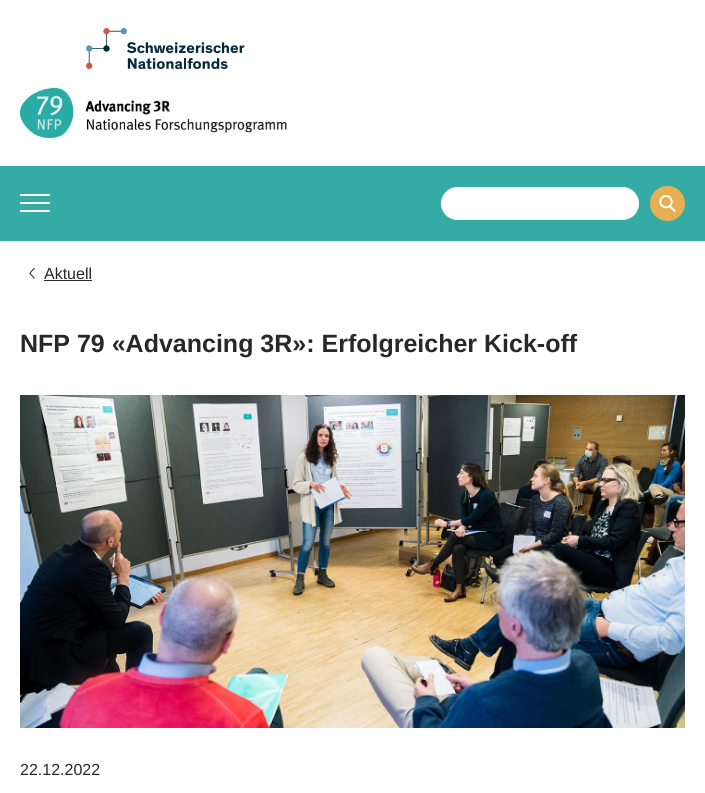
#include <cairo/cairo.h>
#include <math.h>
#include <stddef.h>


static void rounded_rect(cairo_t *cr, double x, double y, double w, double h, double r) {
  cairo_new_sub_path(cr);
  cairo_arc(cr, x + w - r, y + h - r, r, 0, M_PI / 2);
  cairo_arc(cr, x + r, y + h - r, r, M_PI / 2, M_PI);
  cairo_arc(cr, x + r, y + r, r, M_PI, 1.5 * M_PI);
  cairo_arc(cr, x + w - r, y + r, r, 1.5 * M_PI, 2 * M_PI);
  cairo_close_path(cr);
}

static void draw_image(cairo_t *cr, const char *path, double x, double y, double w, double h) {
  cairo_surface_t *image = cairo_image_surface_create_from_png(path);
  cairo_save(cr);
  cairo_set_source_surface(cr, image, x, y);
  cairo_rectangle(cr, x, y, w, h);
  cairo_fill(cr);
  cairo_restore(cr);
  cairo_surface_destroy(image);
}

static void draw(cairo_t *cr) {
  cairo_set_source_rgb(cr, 1, 1, 1);
  cairo_paint(cr);
  draw_image(cr, "images/1.png", 86, 28, 159, 41);
  draw_image(cr, "images/2.png", 20, 87, 267, 51);
  cairo_set_source_rgb(cr, 52 / 255.0, 172 / 255.0, 165 / 255.0);
  cairo_rectangle(cr, 0, 166, 705, 75);
  cairo_fill(cr);
  cairo_set_source_rgb(cr, 1, 1, 1);
  cairo_rectangle(cr, 20, 202, 30, 2);
  cairo_fill(cr);
  cairo_rectangle(cr, 20, 194, 30, 2);
  cairo_fill(cr);
  cairo_rectangle(cr, 20, 210, 30, 2);
  cairo_fill(cr);
  rounded_rect(cr, 440.5, 186.5, 199, 34, 17);
  cairo_fill_preserve(cr);
  cairo_set_source_rgb(cr, 52 / 255.0, 172 / 255.0, 165 / 255.0);
  cairo_set_line_width(cr, 1);
  cairo_stroke(cr);
  cairo_set_source_rgb(cr, 230 / 255.0, 175 / 255.0, 82 / 255.0);
  cairo_arc(cr, 667.5, 203.5, 17.5, 0, 2 * M_PI);
  cairo_fill(cr);
  draw_image(cr, "images/3.png", 659, 195, 17, 17);
  draw_image(cr, "images/4.png", 29, 268, 6, 11);
  cairo_set_source_rgb(cr, 40 / 255.0, 40 / 255.0, 40 / 255.0);
  cairo_rectangle(cr, 44, 280, 48, 1);
  cairo_fill(cr);
  draw_image(cr, "images/5.png", 20, 395, 665, 333);
  cairo_select_font_face(cr, "Liberation Sans", CAIRO_FONT_SLANT_NORMAL, CAIRO_FONT_WEIGHT_NORMAL);
  cairo_set_font_size(cr, 16);
  cairo_move_to(cr, 44, 279);
  cairo_show_text(cr, "Aktuell");
  cairo_select_font_face(cr, "Liberation Sans", CAIRO_FONT_SLANT_NORMAL, CAIRO_FONT_WEIGHT_BOLD);
  cairo_set_font_size(cr, 25);
  cairo_move_to(cr, 20, 352);
  cairo_show_text(cr, "NFP 79 «Advancing 3R»: Erfolgreicher Kick-off");
  cairo_select_font_face(cr, "Liberation Sans", CAIRO_FONT_SLANT_NORMAL, CAIRO_FONT_WEIGHT_NORMAL);
  cairo_set_font_size(cr, 16);
  cairo_move_to(cr, 20, 775);
  cairo_show_text(cr, "22.12.2022");
}

int main(void) {
  cairo_surface_t *surface = cairo_image_surface_create(CAIRO_FORMAT_RGB24, 705, 793);
  cairo_t *cr = cairo_create(surface);
  cairo_font_options_t *options = cairo_font_options_create();
  cairo_font_options_set_hint_metrics(options, CAIRO_HINT_METRICS_OFF);
  cairo_font_options_set_hint_style(options, CAIRO_HINT_STYLE_NONE);
  cairo_set_font_options(cr, options);
  cairo_set_miter_limit(cr, 4);
  draw(cr);
  cairo_surface_write_to_png(surface, "out.png");
  cairo_font_options_destroy(options);
  cairo_destroy(cr);
  cairo_surface_destroy(surface);
  return 0;
}
